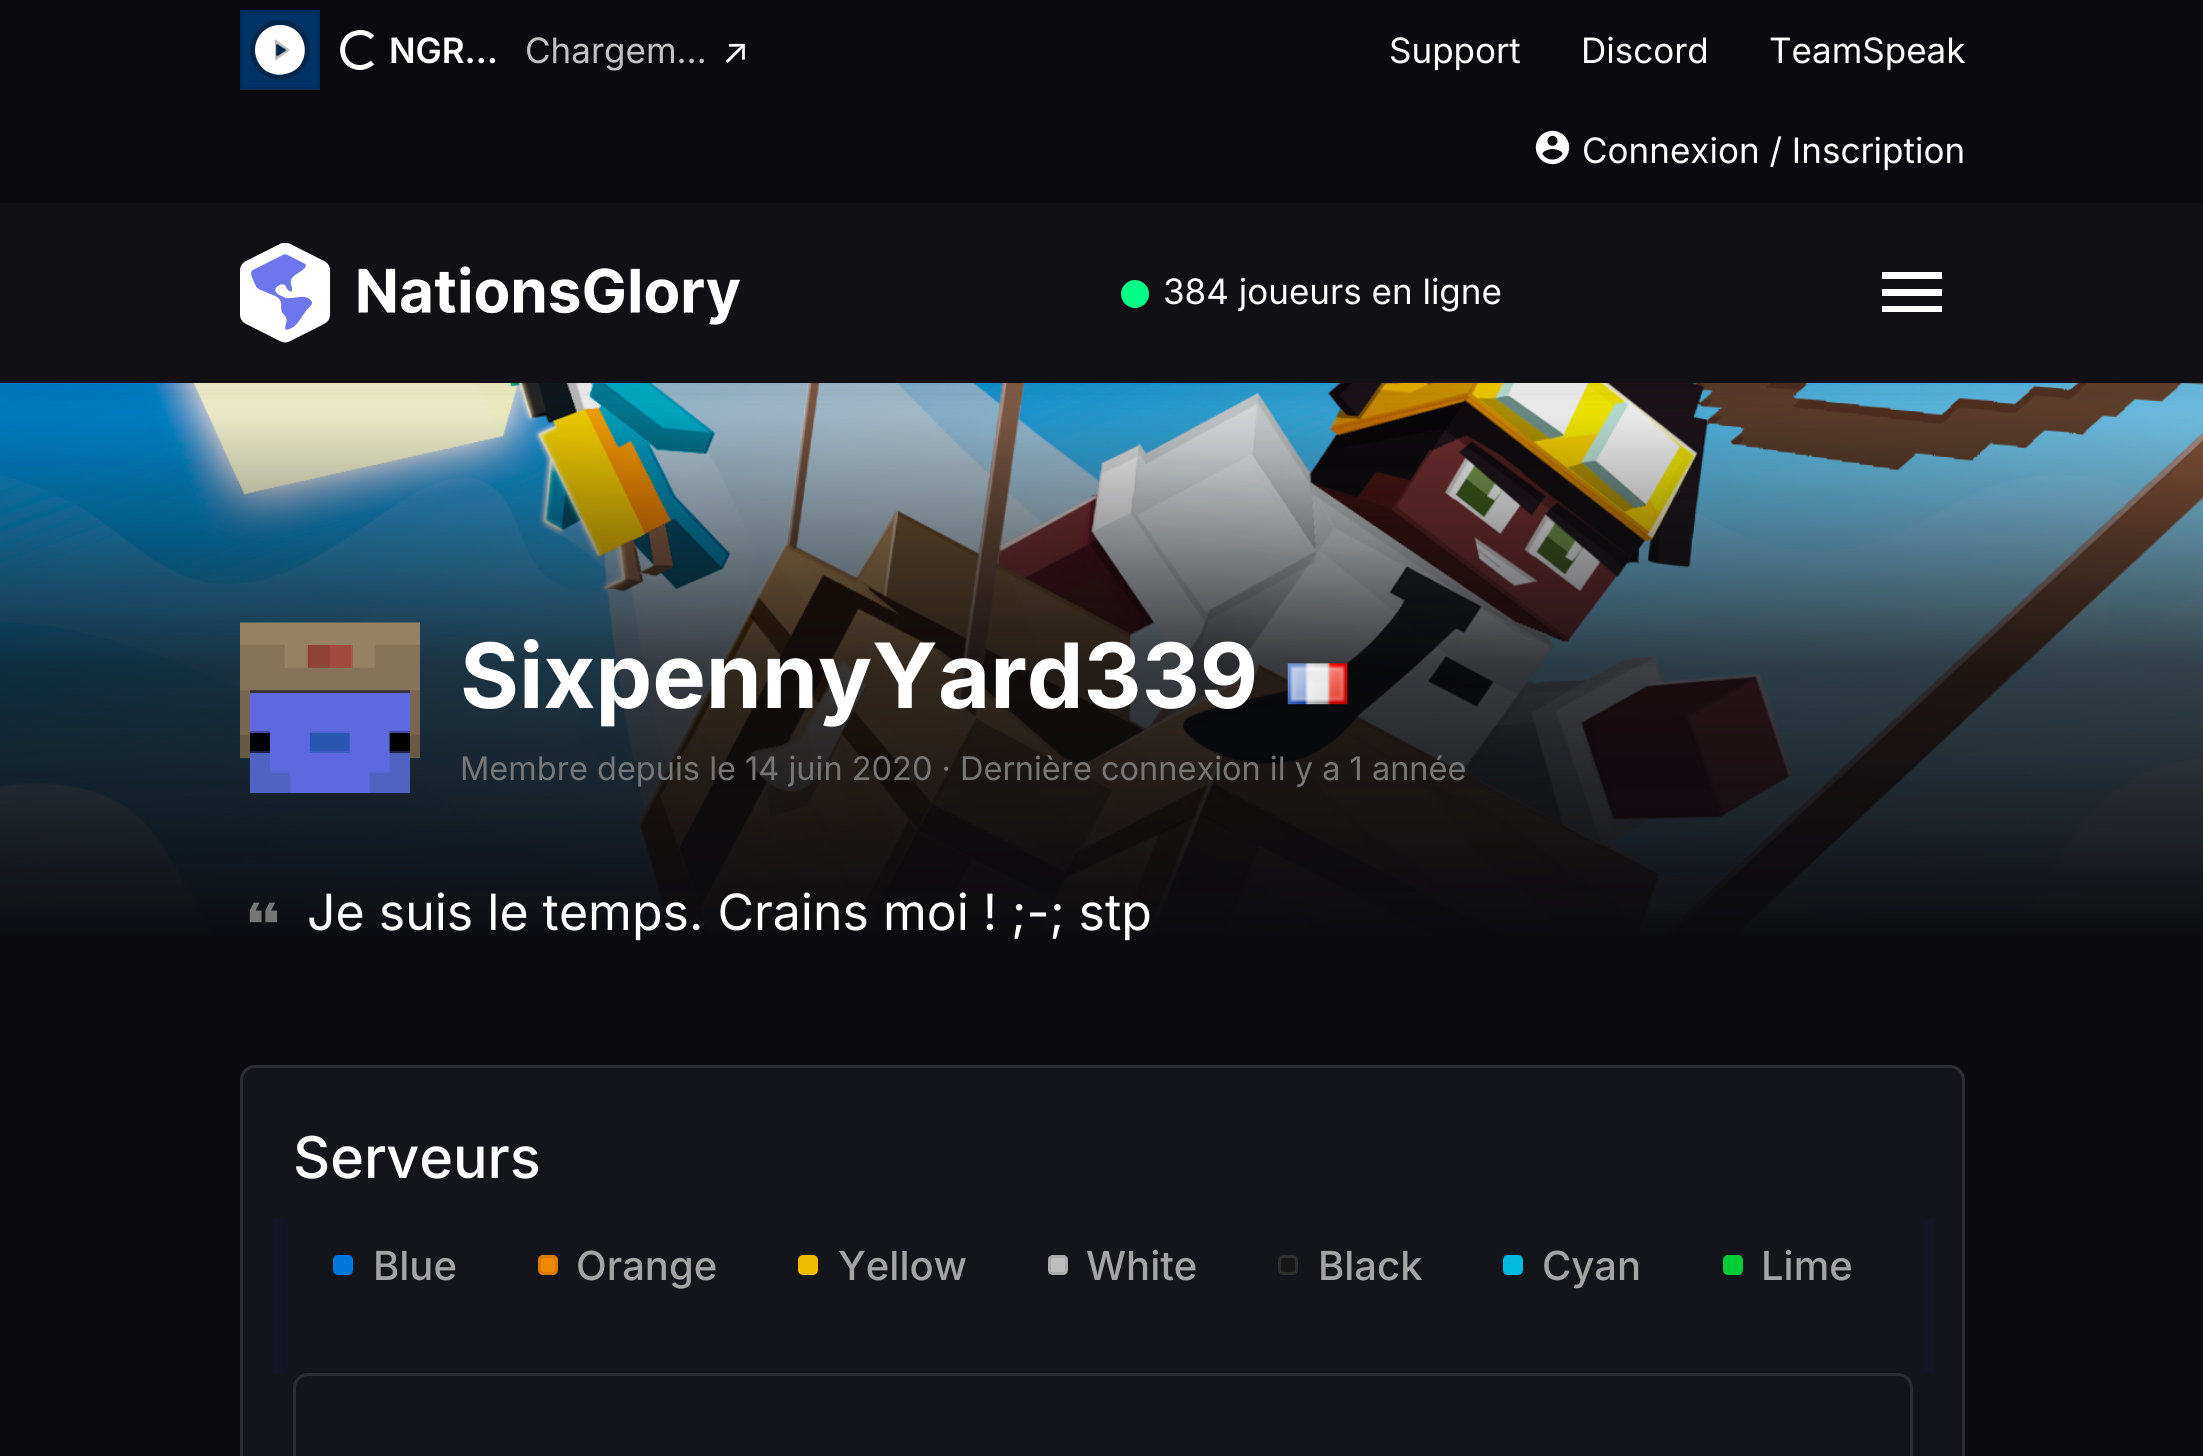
#include <cairo/cairo.h>
#include <math.h>
#include <stddef.h>


static void rounded_rect(cairo_t *cr, double x, double y, double w, double h, double r) {
  cairo_new_sub_path(cr);
  cairo_arc(cr, x + w - r, y + h - r, r, 0, M_PI / 2);
  cairo_arc(cr, x + r, y + h - r, r, M_PI / 2, M_PI);
  cairo_arc(cr, x + r, y + r, r, M_PI, 1.5 * M_PI);
  cairo_arc(cr, x + w - r, y + r, r, 1.5 * M_PI, 2 * M_PI);
  cairo_close_path(cr);
}

static void draw_shadow(cairo_t *cr, double x, double y, double w, double h, double r, double blur, double alpha) {
  cairo_push_group_with_content(cr, CAIRO_CONTENT_ALPHA);
  cairo_set_operator(cr, CAIRO_OPERATOR_SOURCE);
  for (int i = 15; i >= -15 && fmin(w, h) + blur * i / 3 > 0; i -= 2) {
    double e = blur * i / 6;
    cairo_set_source_rgba(cr, 0, 0, 0, alpha * erfc((i - 1) / 8.5) / 2);
    rounded_rect(cr, x - e, y - e, w + 2 * e, h + 2 * e, fmax(0, fmin(r + e + blur * .6, fmin(w, h) / 2 + e)));
    cairo_fill(cr);
  }
  cairo_pattern_t *soft = cairo_pop_group(cr);
  cairo_mask(cr, soft);
  cairo_pattern_destroy(soft);
}

static void draw_image(cairo_t *cr, const char *path, double x, double y, double w, double h) {
  cairo_surface_t *image = cairo_image_surface_create_from_png(path);
  cairo_save(cr);
  cairo_set_source_surface(cr, image, x, y);
  cairo_rectangle(cr, x, y, w, h);
  cairo_fill(cr);
  cairo_restore(cr);
  cairo_surface_destroy(image);
}

static void draw(cairo_t *cr) {
  cairo_pattern_t *gradient;
  cairo_set_source_rgb(cr, 11 / 255.0, 11 / 255.0, 15 / 255.0);
  cairo_paint(cr);
  draw_image(cr, "images/1.png", 243, 13, 74, 74);
  cairo_rectangle(cr, 241.5, 11.5, 77, 77);
  cairo_set_source_rgb(cr, 0, 46 / 255.0, 92 / 255.0);
  cairo_set_line_width(cr, 3);
  cairo_stroke(cr);
  cairo_set_source_rgba(cr, 0, 0, 0, 0.25);
  cairo_arc(cr, 280, 50, 30, 0, 2 * M_PI);
  cairo_fill(cr);
  cairo_set_source_rgb(cr, 1, 1, 1);
  cairo_new_path(cr);
  cairo_move_to(cr, 275, 61);
  cairo_line_to(cr, 275, 39);
  cairo_line_to(cr, 290, 50);
  cairo_close_path(cr);
  cairo_move_to(cr, 280, 25);
  cairo_curve_to(cr, 266, 25, 255, 36, 255, 50);
  cairo_curve_to(cr, 255, 58, 259, 66, 266, 71);
  cairo_curve_to(cr, 272, 74, 278, 76, 285, 74);
  cairo_curve_to(cr, 314, 69, 310, 25, 280, 25);
  cairo_close_path(cr);
  cairo_fill(cr);
  cairo_new_path(cr);
  cairo_move_to(cr, 372.5, 62.5);
  cairo_curve_to(cr, 369, 65.5, 364.5, 67.5, 360, 67.5);
  cairo_curve_to(cr, 339, 67.5, 336, 37, 356.5, 33);
  cairo_curve_to(cr, 362.5, 31.5, 368.5, 33.5, 372.5, 37.5);
  cairo_set_line_width(cr, 5);
  cairo_stroke(cr);
  draw_image(cr, "images/2.png", 1535, 130, 35, 35);
  draw_image(cr, "images/4.png", 0, 383, 2203, 553);
  gradient = cairo_pattern_create_linear(1103, 382, 1103, 943);
  cairo_pattern_add_color_stop_rgba(gradient, 0, 11 / 255.0, 11 / 255.0, 15 / 255.0, 0);
  cairo_pattern_add_color_stop_rgba(gradient, 0.5, 11 / 255.0, 11 / 255.0, 15 / 255.0, 0.75);
  cairo_pattern_add_color_stop_rgba(gradient, 1, 11 / 255.0, 11 / 255.0, 15 / 255.0, 1);
  cairo_set_source(cr, gradient);
  cairo_pattern_destroy(gradient);
  cairo_rectangle(cr, 0, 390, 2203, 546);
  cairo_fill(cr);
  cairo_set_source_rgb(cr, 0, 0, 0);
  draw_shadow(cr, 0, 213, 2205, 180, 0, 15, 0.15);
  cairo_set_source_rgb(cr, 16 / 255.0, 16 / 255.0, 21 / 255.0);
  cairo_rectangle(cr, 0, 203, 2203, 180);
  cairo_fill(cr);
  draw_image(cr, "images/3.png", 240, 243, 500, 100);
  cairo_set_source_rgb(cr, 0, 1, 133 / 255.0);
  cairo_arc(cr, 1135, 294, 14, 0, 2 * M_PI);
  cairo_fill(cr);
  cairo_set_source_rgb(cr, 1, 1, 1);
  cairo_new_path(cr);
  cairo_move_to(cr, 1882, 272);
  cairo_line_to(cr, 1942, 272);
  cairo_line_to(cr, 1942, 279);
  cairo_line_to(cr, 1882, 279);
  cairo_close_path(cr);
  cairo_move_to(cr, 1882, 289);
  cairo_line_to(cr, 1942, 289);
  cairo_line_to(cr, 1942, 296);
  cairo_line_to(cr, 1882, 296);
  cairo_close_path(cr);
  cairo_move_to(cr, 1882, 306);
  cairo_line_to(cr, 1942, 306);
  cairo_line_to(cr, 1942, 312);
  cairo_line_to(cr, 1882, 312);
  cairo_close_path(cr);
  cairo_fill(cr);
  draw_image(cr, "images/5.png", 240, 622, 180, 172);
  draw_image(cr, "images/6.png", 1287, 663, 61, 42);
  draw_image(cr, "images/7.png", 249, 902, 29, 21);
  cairo_set_source_rgb(cr, 20 / 255.0, 20 / 255.0, 27 / 255.0);
  rounded_rect(cr, 241.5, 1066.5, 1722, 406, 13.5);
  cairo_fill_preserve(cr);
  cairo_set_source_rgb(cr, 44 / 255.0, 44 / 255.0, 50 / 255.0);
  cairo_set_line_width(cr, 3);
  cairo_stroke(cr);
  gradient = cairo_pattern_create_linear(273, 1295, 293, 1295);
  cairo_pattern_add_color_stop_rgba(gradient, 0, 21 / 255.0, 21 / 255.0, 39 / 255.0, 1);
  cairo_pattern_add_color_stop_rgba(gradient, 1, 20 / 255.0, 20 / 255.0, 27 / 255.0, 1);
  cairo_set_source(cr, gradient);
  cairo_pattern_destroy(gradient);
  cairo_rectangle(cr, 273, 1218, 16, 155);
  cairo_fill(cr);
  cairo_set_source_rgb(cr, 0, 119 / 255.0, 221 / 255.0);
  rounded_rect(cr, 333, 1255, 20, 20, 5);
  cairo_fill(cr);
  cairo_set_source_rgb(cr, 238 / 255.0, 136 / 255.0, 0);
  rounded_rect(cr, 538, 1255, 20, 20, 5);
  cairo_fill(cr);
  rounded_rect(cr, 539.5, 1256.5, 17, 17, 3.5);
  cairo_set_source_rgba(cr, 0, 0, 0, 0.1);
  cairo_stroke(cr);
  cairo_set_source_rgb(cr, 238 / 255.0, 187 / 255.0, 0);
  rounded_rect(cr, 798, 1255, 20, 20, 5);
  cairo_fill(cr);
  cairo_set_source_rgb(cr, 190 / 255.0, 190 / 255.0, 190 / 255.0);
  rounded_rect(cr, 1048, 1255, 20, 20, 5);
  cairo_fill(cr);
  rounded_rect(cr, 1049.5, 1256.5, 17, 17, 3.5);
  cairo_set_source_rgba(cr, 0, 0, 0, 0.1);
  cairo_stroke(cr);
  cairo_set_source_rgb(cr, 23 / 255.0, 23 / 255.0, 23 / 255.0);
  rounded_rect(cr, 1279.5, 1256.5, 17, 17, 3.5);
  cairo_fill_preserve(cr);
  cairo_set_source_rgb(cr, 46 / 255.0, 46 / 255.0, 46 / 255.0);
  cairo_stroke(cr);
  cairo_set_source_rgb(cr, 0, 187 / 255.0, 221 / 255.0);
  rounded_rect(cr, 1503, 1255, 20, 20, 5);
  cairo_fill(cr);
  cairo_set_source_rgb(cr, 0, 204 / 255.0, 51 / 255.0);
  rounded_rect(cr, 1723, 1255, 20, 20, 5);
  cairo_fill(cr);
  gradient = cairo_pattern_create_linear(1933, 1295, 1913, 1295);
  cairo_pattern_add_color_stop_rgba(gradient, 0, 21 / 255.0, 21 / 255.0, 39 / 255.0, 1);
  cairo_pattern_add_color_stop_rgba(gradient, 1, 20 / 255.0, 20 / 255.0, 27 / 255.0, 1);
  cairo_set_source(cr, gradient);
  cairo_pattern_destroy(gradient);
  cairo_rectangle(cr, 1917, 1218, 16, 155);
  cairo_fill(cr);
  rounded_rect(cr, 294.5, 1374.5, 1617, 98, 13.5);
  cairo_set_source_rgb(cr, 44 / 255.0, 44 / 255.0, 50 / 255.0);
  cairo_stroke(cr);
  cairo_select_font_face(cr, "Inter SemiBold", CAIRO_FONT_SLANT_NORMAL, CAIRO_FONT_WEIGHT_NORMAL);
  cairo_set_font_size(cr, 35);
  cairo_set_source_rgb(cr, 1, 1, 1);
  cairo_move_to(cr, 389, 63);
  cairo_show_text(cr, "NGR…");
  cairo_select_font_face(cr, "Inter", CAIRO_FONT_SLANT_NORMAL, CAIRO_FONT_WEIGHT_NORMAL);
  cairo_set_source_rgb(cr, 194 / 255.0, 194 / 255.0, 195 / 255.0);
  cairo_move_to(cr, 525, 63);
  cairo_show_text(cr, "Chargem…");
  cairo_set_source_rgb(cr, 1, 1, 1);
  cairo_move_to(cr, 722, 63);
  cairo_show_text(cr, "↗");
  cairo_move_to(cr, 1389, 63);
  cairo_show_text(cr, "Support");
  cairo_move_to(cr, 1581, 63);
  cairo_show_text(cr, "Discord");
  cairo_move_to(cr, 1769, 63);
  cairo_show_text(cr, "TeamSpeak");
  cairo_move_to(cr, 1582, 163);
  cairo_show_text(cr, "Connexion / Inscription");
  cairo_move_to(cr, 1163, 304);
  cairo_show_text(cr, "384 joueurs en ligne");
  cairo_select_font_face(cr, "Inter", CAIRO_FONT_SLANT_NORMAL, CAIRO_FONT_WEIGHT_BOLD);
  cairo_set_font_size(cr, 90);
  cairo_move_to(cr, 460, 708);
  cairo_show_text(cr, "SixpennyYard339");
  cairo_select_font_face(cr, "Inter", CAIRO_FONT_SLANT_NORMAL, CAIRO_FONT_WEIGHT_NORMAL);
  cairo_set_font_size(cr, 32.5);
  cairo_set_source_rgb(cr, 118 / 255.0, 118 / 255.0, 118 / 255.0);
  cairo_move_to(cr, 460, 780);
  cairo_show_text(cr, "Membre depuis le 14 juin 2020 · Dernière connexion il y a 1 année");
  cairo_set_font_size(cr, 50);
  cairo_set_source_rgb(cr, 1, 1, 1);
  cairo_move_to(cr, 307, 930);
  cairo_show_text(cr, "Je suis le temps. Crains moi ! ;-; stp");
  cairo_select_font_face(cr, "Inter Medium", CAIRO_FONT_SLANT_NORMAL, CAIRO_FONT_WEIGHT_NORMAL);
  cairo_set_font_size(cr, 57.5);
  cairo_move_to(cr, 293, 1178);
  cairo_show_text(cr, "Serveurs");
  cairo_set_font_size(cr, 40);
  cairo_set_source_rgb(cr, 164 / 255.0, 164 / 255.0, 164 / 255.0);
  cairo_move_to(cr, 373, 1280);
  cairo_show_text(cr, "Blue");
  cairo_move_to(cr, 576, 1280);
  cairo_show_text(cr, "Orange");
  cairo_move_to(cr, 838, 1280);
  cairo_show_text(cr, "Yellow");
  cairo_move_to(cr, 1086, 1280);
  cairo_show_text(cr, "White");
  cairo_move_to(cr, 1318, 1280);
  cairo_show_text(cr, "Black");
  cairo_move_to(cr, 1542, 1280);
  cairo_show_text(cr, "Cyan");
  cairo_move_to(cr, 1761, 1280);
  cairo_show_text(cr, "Lime");
}

int main(void) {
  cairo_surface_t *surface = cairo_image_surface_create(CAIRO_FORMAT_RGB24, 2203, 1456);
  cairo_t *cr = cairo_create(surface);
  cairo_font_options_t *options = cairo_font_options_create();
  cairo_font_options_set_hint_metrics(options, CAIRO_HINT_METRICS_OFF);
  cairo_font_options_set_hint_style(options, CAIRO_HINT_STYLE_NONE);
  cairo_set_font_options(cr, options);
  cairo_set_miter_limit(cr, 4);
  draw(cr);
  cairo_surface_write_to_png(surface, "out.png");
  cairo_font_options_destroy(options);
  cairo_destroy(cr);
  cairo_surface_destroy(surface);
  return 0;
}
